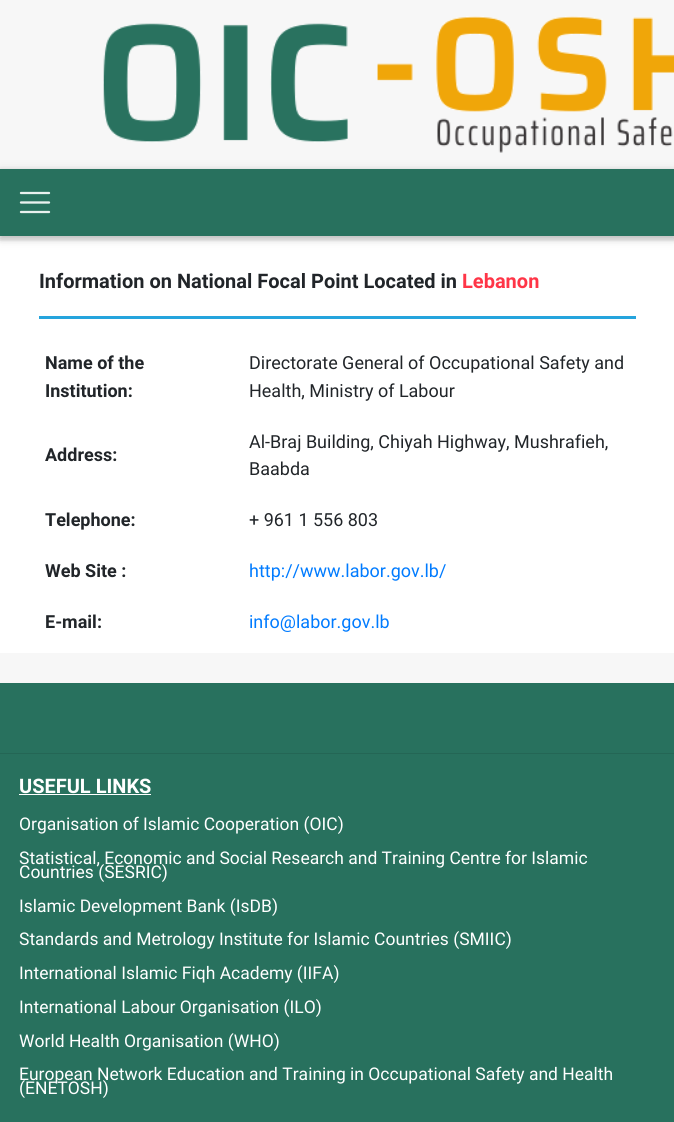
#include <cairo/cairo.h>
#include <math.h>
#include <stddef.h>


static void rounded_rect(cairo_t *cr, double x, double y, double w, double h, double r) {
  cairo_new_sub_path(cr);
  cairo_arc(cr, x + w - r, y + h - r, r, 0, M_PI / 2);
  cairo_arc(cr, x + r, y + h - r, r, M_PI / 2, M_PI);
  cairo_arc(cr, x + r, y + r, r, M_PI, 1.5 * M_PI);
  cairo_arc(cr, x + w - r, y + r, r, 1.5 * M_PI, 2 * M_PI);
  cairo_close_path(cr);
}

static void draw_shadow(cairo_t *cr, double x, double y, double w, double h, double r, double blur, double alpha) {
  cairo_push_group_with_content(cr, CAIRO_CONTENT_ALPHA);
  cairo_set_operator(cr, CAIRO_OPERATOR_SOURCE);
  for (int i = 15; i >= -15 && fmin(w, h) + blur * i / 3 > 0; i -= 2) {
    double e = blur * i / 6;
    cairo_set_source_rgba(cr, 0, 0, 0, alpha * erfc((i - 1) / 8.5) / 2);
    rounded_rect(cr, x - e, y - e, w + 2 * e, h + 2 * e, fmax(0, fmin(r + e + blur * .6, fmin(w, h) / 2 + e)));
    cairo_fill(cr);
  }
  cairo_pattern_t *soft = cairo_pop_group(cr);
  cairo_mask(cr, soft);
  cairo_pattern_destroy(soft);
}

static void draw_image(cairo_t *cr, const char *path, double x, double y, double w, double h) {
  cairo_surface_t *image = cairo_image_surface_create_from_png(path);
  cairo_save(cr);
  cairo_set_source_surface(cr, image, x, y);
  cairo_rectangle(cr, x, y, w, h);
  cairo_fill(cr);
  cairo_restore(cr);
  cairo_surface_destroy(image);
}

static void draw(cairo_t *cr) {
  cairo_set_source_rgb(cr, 247 / 255.0, 247 / 255.0, 247 / 255.0);
  cairo_paint(cr);
  draw_image(cr, "images/1.png", 103, 16, 571, 137);
  cairo_set_source_rgb(cr, 1, 1, 1);
  cairo_rectangle(cr, 0, 241, 674, 412);
  cairo_fill(cr);
  cairo_set_source_rgb(cr, 0, 0, 0);
  draw_shadow(cr, 0, 171, 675, 68, 0, 6, 0.12);
  draw_shadow(cr, 0, 171, 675, 68, 0, 3, 0.16);
  cairo_set_source_rgb(cr, 40 / 255.0, 113 / 255.0, 94 / 255.0);
  cairo_rectangle(cr, 0, 169, 674, 67);
  cairo_fill(cr);
  cairo_new_path(cr);
  cairo_move_to(cr, 21, 193);
  cairo_line_to(cr, 49, 193);
  cairo_move_to(cr, 21, 202.5);
  cairo_line_to(cr, 49, 202.5);
  cairo_move_to(cr, 21, 212);
  cairo_line_to(cr, 49, 212);
  cairo_set_source_rgb(cr, 234 / 255.0, 241 / 255.0, 239 / 255.0);
  cairo_set_line_width(cr, 2.3);
  cairo_set_line_cap(cr, CAIRO_LINE_CAP_ROUND);
  cairo_stroke(cr);
  cairo_set_source_rgb(cr, 37 / 255.0, 164 / 255.0, 221 / 255.0);
  cairo_rectangle(cr, 39, 316, 597, 3);
  cairo_fill(cr);
  cairo_set_source_rgb(cr, 40 / 255.0, 113 / 255.0, 94 / 255.0);
  cairo_rectangle(cr, 0, 683, 674, 439);
  cairo_fill(cr);
  cairo_set_source_rgb(cr, 36 / 255.0, 102 / 255.0, 85 / 255.0);
  cairo_rectangle(cr, 0, 753, 674, 1);
  cairo_fill(cr);
  cairo_set_source_rgb(cr, 1, 1, 1);
  cairo_rectangle(cr, 19, 794, 132, 1);
  cairo_fill(cr);
  cairo_select_font_face(cr, "Roboto", CAIRO_FONT_SLANT_NORMAL, CAIRO_FONT_WEIGHT_BOLD);
  cairo_set_font_size(cr, 20);
  cairo_set_source_rgb(cr, 33 / 255.0, 37 / 255.0, 41 / 255.0);
  cairo_move_to(cr, 39, 288);
  cairo_show_text(cr, "Information on National Focal Point Located in");
  cairo_set_source_rgb(cr, 1, 53 / 255.0, 71 / 255.0);
  cairo_move_to(cr, 462, 288);
  cairo_show_text(cr, "Lebanon");
  cairo_set_font_size(cr, 18);
  cairo_set_source_rgb(cr, 33 / 255.0, 37 / 255.0, 41 / 255.0);
  cairo_move_to(cr, 45, 369);
  cairo_show_text(cr, "Name of the");
  cairo_move_to(cr, 45, 397);
  cairo_show_text(cr, "Institution:");
  cairo_select_font_face(cr, "Roboto", CAIRO_FONT_SLANT_NORMAL, CAIRO_FONT_WEIGHT_NORMAL);
  cairo_move_to(cr, 249, 369);
  cairo_show_text(cr, "Directorate General of Occupational Safety and");
  cairo_move_to(cr, 249, 397);
  cairo_show_text(cr, "Health, Ministry of Labour");
  cairo_select_font_face(cr, "Roboto", CAIRO_FONT_SLANT_NORMAL, CAIRO_FONT_WEIGHT_BOLD);
  cairo_move_to(cr, 45, 461);
  cairo_show_text(cr, "Address:");
  cairo_select_font_face(cr, "Roboto", CAIRO_FONT_SLANT_NORMAL, CAIRO_FONT_WEIGHT_NORMAL);
  cairo_move_to(cr, 249, 448);
  cairo_show_text(cr, "Al-Braj Building, Chiyah Highway, Mushrafieh,");
  cairo_move_to(cr, 249, 475);
  cairo_show_text(cr, "Baabda");
  cairo_select_font_face(cr, "Roboto", CAIRO_FONT_SLANT_NORMAL, CAIRO_FONT_WEIGHT_BOLD);
  cairo_move_to(cr, 45, 526);
  cairo_show_text(cr, "Telephone:");
  cairo_select_font_face(cr, "Roboto", CAIRO_FONT_SLANT_NORMAL, CAIRO_FONT_WEIGHT_NORMAL);
  cairo_move_to(cr, 249, 526);
  cairo_show_text(cr, "+ 961 1 556 803");
  cairo_select_font_face(cr, "Roboto", CAIRO_FONT_SLANT_NORMAL, CAIRO_FONT_WEIGHT_BOLD);
  cairo_move_to(cr, 45, 577);
  cairo_show_text(cr, "Web Site :");
  cairo_select_font_face(cr, "Roboto", CAIRO_FONT_SLANT_NORMAL, CAIRO_FONT_WEIGHT_NORMAL);
  cairo_set_source_rgb(cr, 0, 123 / 255.0, 1);
  cairo_move_to(cr, 249, 577);
  cairo_show_text(cr, "http://www.labor.gov.lb/");
  cairo_select_font_face(cr, "Roboto", CAIRO_FONT_SLANT_NORMAL, CAIRO_FONT_WEIGHT_BOLD);
  cairo_set_source_rgb(cr, 33 / 255.0, 37 / 255.0, 41 / 255.0);
  cairo_move_to(cr, 45, 628);
  cairo_show_text(cr, "E-mail:");
  cairo_select_font_face(cr, "Roboto", CAIRO_FONT_SLANT_NORMAL, CAIRO_FONT_WEIGHT_NORMAL);
  cairo_set_source_rgb(cr, 0, 123 / 255.0, 1);
  cairo_move_to(cr, 249, 628);
  cairo_show_text(cr, "info@labor.gov.lb");
  cairo_select_font_face(cr, "Roboto", CAIRO_FONT_SLANT_NORMAL, CAIRO_FONT_WEIGHT_BOLD);
  cairo_set_font_size(cr, 20);
  cairo_set_source_rgb(cr, 1, 1, 1);
  cairo_move_to(cr, 19, 793);
  cairo_show_text(cr, "USEFUL LINKS");
  cairo_select_font_face(cr, "Roboto", CAIRO_FONT_SLANT_NORMAL, CAIRO_FONT_WEIGHT_NORMAL);
  cairo_set_font_size(cr, 17.5);
  cairo_move_to(cr, 19, 830);
  cairo_show_text(cr, "Organisation of Islamic Cooperation (OIC)");
  cairo_move_to(cr, 19, 864);
  cairo_show_text(cr, "Statistical, Economic and Social Research and Training Centre for Islamic");
  cairo_move_to(cr, 19, 878);
  cairo_show_text(cr, "Countries (SESRIC)");
  cairo_move_to(cr, 19, 912);
  cairo_show_text(cr, "Islamic Development Bank (IsDB)");
  cairo_move_to(cr, 19, 945);
  cairo_show_text(cr, "Standards and Metrology Institute for Islamic Countries (SMIIC)");
  cairo_move_to(cr, 19, 979);
  cairo_show_text(cr, "International Islamic Fiqh Academy (IIFA)");
  cairo_move_to(cr, 19, 1013);
  cairo_show_text(cr, "International Labour Organisation (ILO)");
  cairo_move_to(cr, 19, 1047);
  cairo_show_text(cr, "World Health Organisation (WHO)");
  cairo_move_to(cr, 19, 1080);
  cairo_show_text(cr, "European Network Education and Training in Occupational Safety and Health");
  cairo_move_to(cr, 19, 1094);
  cairo_show_text(cr, "(ENETOSH)");
}

int main(void) {
  cairo_surface_t *surface = cairo_image_surface_create(CAIRO_FORMAT_RGB24, 674, 1122);
  cairo_t *cr = cairo_create(surface);
  cairo_font_options_t *options = cairo_font_options_create();
  cairo_font_options_set_hint_metrics(options, CAIRO_HINT_METRICS_OFF);
  cairo_font_options_set_hint_style(options, CAIRO_HINT_STYLE_NONE);
  cairo_set_font_options(cr, options);
  cairo_set_miter_limit(cr, 4);
  draw(cr);
  cairo_surface_write_to_png(surface, "out.png");
  cairo_font_options_destroy(options);
  cairo_destroy(cr);
  cairo_surface_destroy(surface);
  return 0;
}
